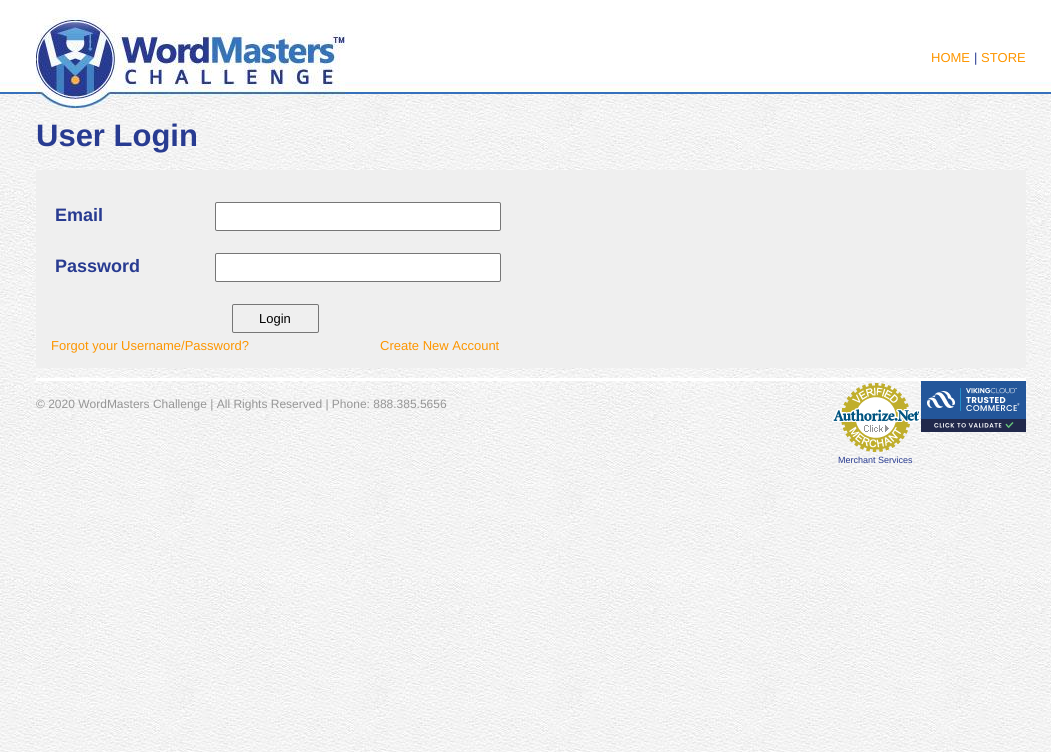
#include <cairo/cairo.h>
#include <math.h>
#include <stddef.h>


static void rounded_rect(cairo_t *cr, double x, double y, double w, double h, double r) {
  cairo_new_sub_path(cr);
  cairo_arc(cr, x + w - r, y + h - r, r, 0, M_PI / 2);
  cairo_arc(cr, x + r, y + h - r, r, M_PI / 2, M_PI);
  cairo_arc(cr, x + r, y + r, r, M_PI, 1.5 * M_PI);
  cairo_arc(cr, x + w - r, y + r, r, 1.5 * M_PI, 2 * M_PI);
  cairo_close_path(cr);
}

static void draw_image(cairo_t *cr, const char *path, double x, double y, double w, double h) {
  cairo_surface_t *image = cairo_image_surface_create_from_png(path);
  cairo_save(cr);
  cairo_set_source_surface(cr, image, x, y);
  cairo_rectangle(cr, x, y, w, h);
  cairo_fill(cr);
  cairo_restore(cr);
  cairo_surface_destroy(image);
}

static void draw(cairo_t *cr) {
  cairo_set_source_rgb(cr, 1, 1, 1);
  cairo_paint(cr);
  draw_image(cr, "images/1.png", 0, 94, 1051, 658);
  draw_image(cr, "images/2.png", 0, 0, 1051, 94);
  draw_image(cr, "images/3.png", 36, 17, 309, 91);
  cairo_set_source_rgb(cr, 239 / 255.0, 239 / 255.0, 239 / 255.0);
  cairo_rectangle(cr, 36, 170, 990, 198);
  cairo_fill(cr);
  cairo_set_source_rgb(cr, 1, 1, 1);
  rounded_rect(cr, 215.5, 202.5, 285, 28, 1.5);
  cairo_fill_preserve(cr);
  cairo_set_source_rgb(cr, 118 / 255.0, 118 / 255.0, 118 / 255.0);
  cairo_set_line_width(cr, 1);
  cairo_stroke(cr);
  cairo_set_source_rgb(cr, 1, 1, 1);
  rounded_rect(cr, 215.5, 253.5, 285, 28, 1.5);
  cairo_fill_preserve(cr);
  cairo_set_source_rgb(cr, 118 / 255.0, 118 / 255.0, 118 / 255.0);
  cairo_stroke(cr);
  rounded_rect(cr, 232.5, 304.5, 86, 28, 1.5);
  cairo_stroke(cr);
  cairo_set_source_rgb(cr, 1, 1, 1);
  cairo_rectangle(cr, 36, 378, 990, 3);
  cairo_fill(cr);
  draw_image(cr, "images/4.png", 921, 381, 105, 51);
  draw_image(cr, "images/5.png", 832, 383, 88, 69);
  cairo_select_font_face(cr, "Liberation Sans", CAIRO_FONT_SLANT_NORMAL, CAIRO_FONT_WEIGHT_NORMAL);
  cairo_set_font_size(cr, 13);
  cairo_set_source_rgb(cr, 253 / 255.0, 150 / 255.0, 0);
  cairo_move_to(cr, 931, 62);
  cairo_show_text(cr, "HOME");
  cairo_set_source_rgb(cr, 40 / 255.0, 59 / 255.0, 145 / 255.0);
  cairo_move_to(cr, 974, 62);
  cairo_show_text(cr, "|");
  cairo_set_source_rgb(cr, 253 / 255.0, 150 / 255.0, 0);
  cairo_move_to(cr, 981, 62);
  cairo_show_text(cr, "STORE");
  cairo_select_font_face(cr, "Liberation Sans", CAIRO_FONT_SLANT_NORMAL, CAIRO_FONT_WEIGHT_BOLD);
  cairo_set_font_size(cr, 31);
  cairo_set_source_rgb(cr, 40 / 255.0, 59 / 255.0, 145 / 255.0);
  cairo_move_to(cr, 36, 146);
  cairo_show_text(cr, "User Login");
  cairo_set_font_size(cr, 18);
  cairo_move_to(cr, 55, 221);
  cairo_show_text(cr, "Email");
  cairo_move_to(cr, 55, 272);
  cairo_show_text(cr, "Password");
  cairo_select_font_face(cr, "Liberation Sans", CAIRO_FONT_SLANT_NORMAL, CAIRO_FONT_WEIGHT_NORMAL);
  cairo_set_font_size(cr, 13);
  cairo_set_source_rgb(cr, 0, 0, 0);
  cairo_move_to(cr, 259, 323);
  cairo_show_text(cr, "Login");
  cairo_set_source_rgb(cr, 253 / 255.0, 150 / 255.0, 0);
  cairo_move_to(cr, 51, 350);
  cairo_show_text(cr, "Forgot your Username/Password?");
  cairo_move_to(cr, 380, 350);
  cairo_show_text(cr, "Create New Account");
  cairo_set_font_size(cr, 12);
  cairo_set_source_rgb(cr, 150 / 255.0, 150 / 255.0, 150 / 255.0);
  cairo_move_to(cr, 36, 408);
  cairo_show_text(cr, "© 2020 WordMasters Challenge | All Rights Reserved | Phone: 888.385.5656");
  cairo_set_font_size(cr, 9);
  cairo_set_source_rgb(cr, 40 / 255.0, 59 / 255.0, 145 / 255.0);
  cairo_move_to(cr, 838, 463);
  cairo_show_text(cr, "Merchant Services");
}

int main(void) {
  cairo_surface_t *surface = cairo_image_surface_create(CAIRO_FORMAT_RGB24, 1051, 752);
  cairo_t *cr = cairo_create(surface);
  cairo_font_options_t *options = cairo_font_options_create();
  cairo_font_options_set_hint_metrics(options, CAIRO_HINT_METRICS_OFF);
  cairo_font_options_set_hint_style(options, CAIRO_HINT_STYLE_NONE);
  cairo_set_font_options(cr, options);
  cairo_set_miter_limit(cr, 4);
  draw(cr);
  cairo_surface_write_to_png(surface, "out.png");
  cairo_font_options_destroy(options);
  cairo_destroy(cr);
  cairo_surface_destroy(surface);
  return 0;
}
